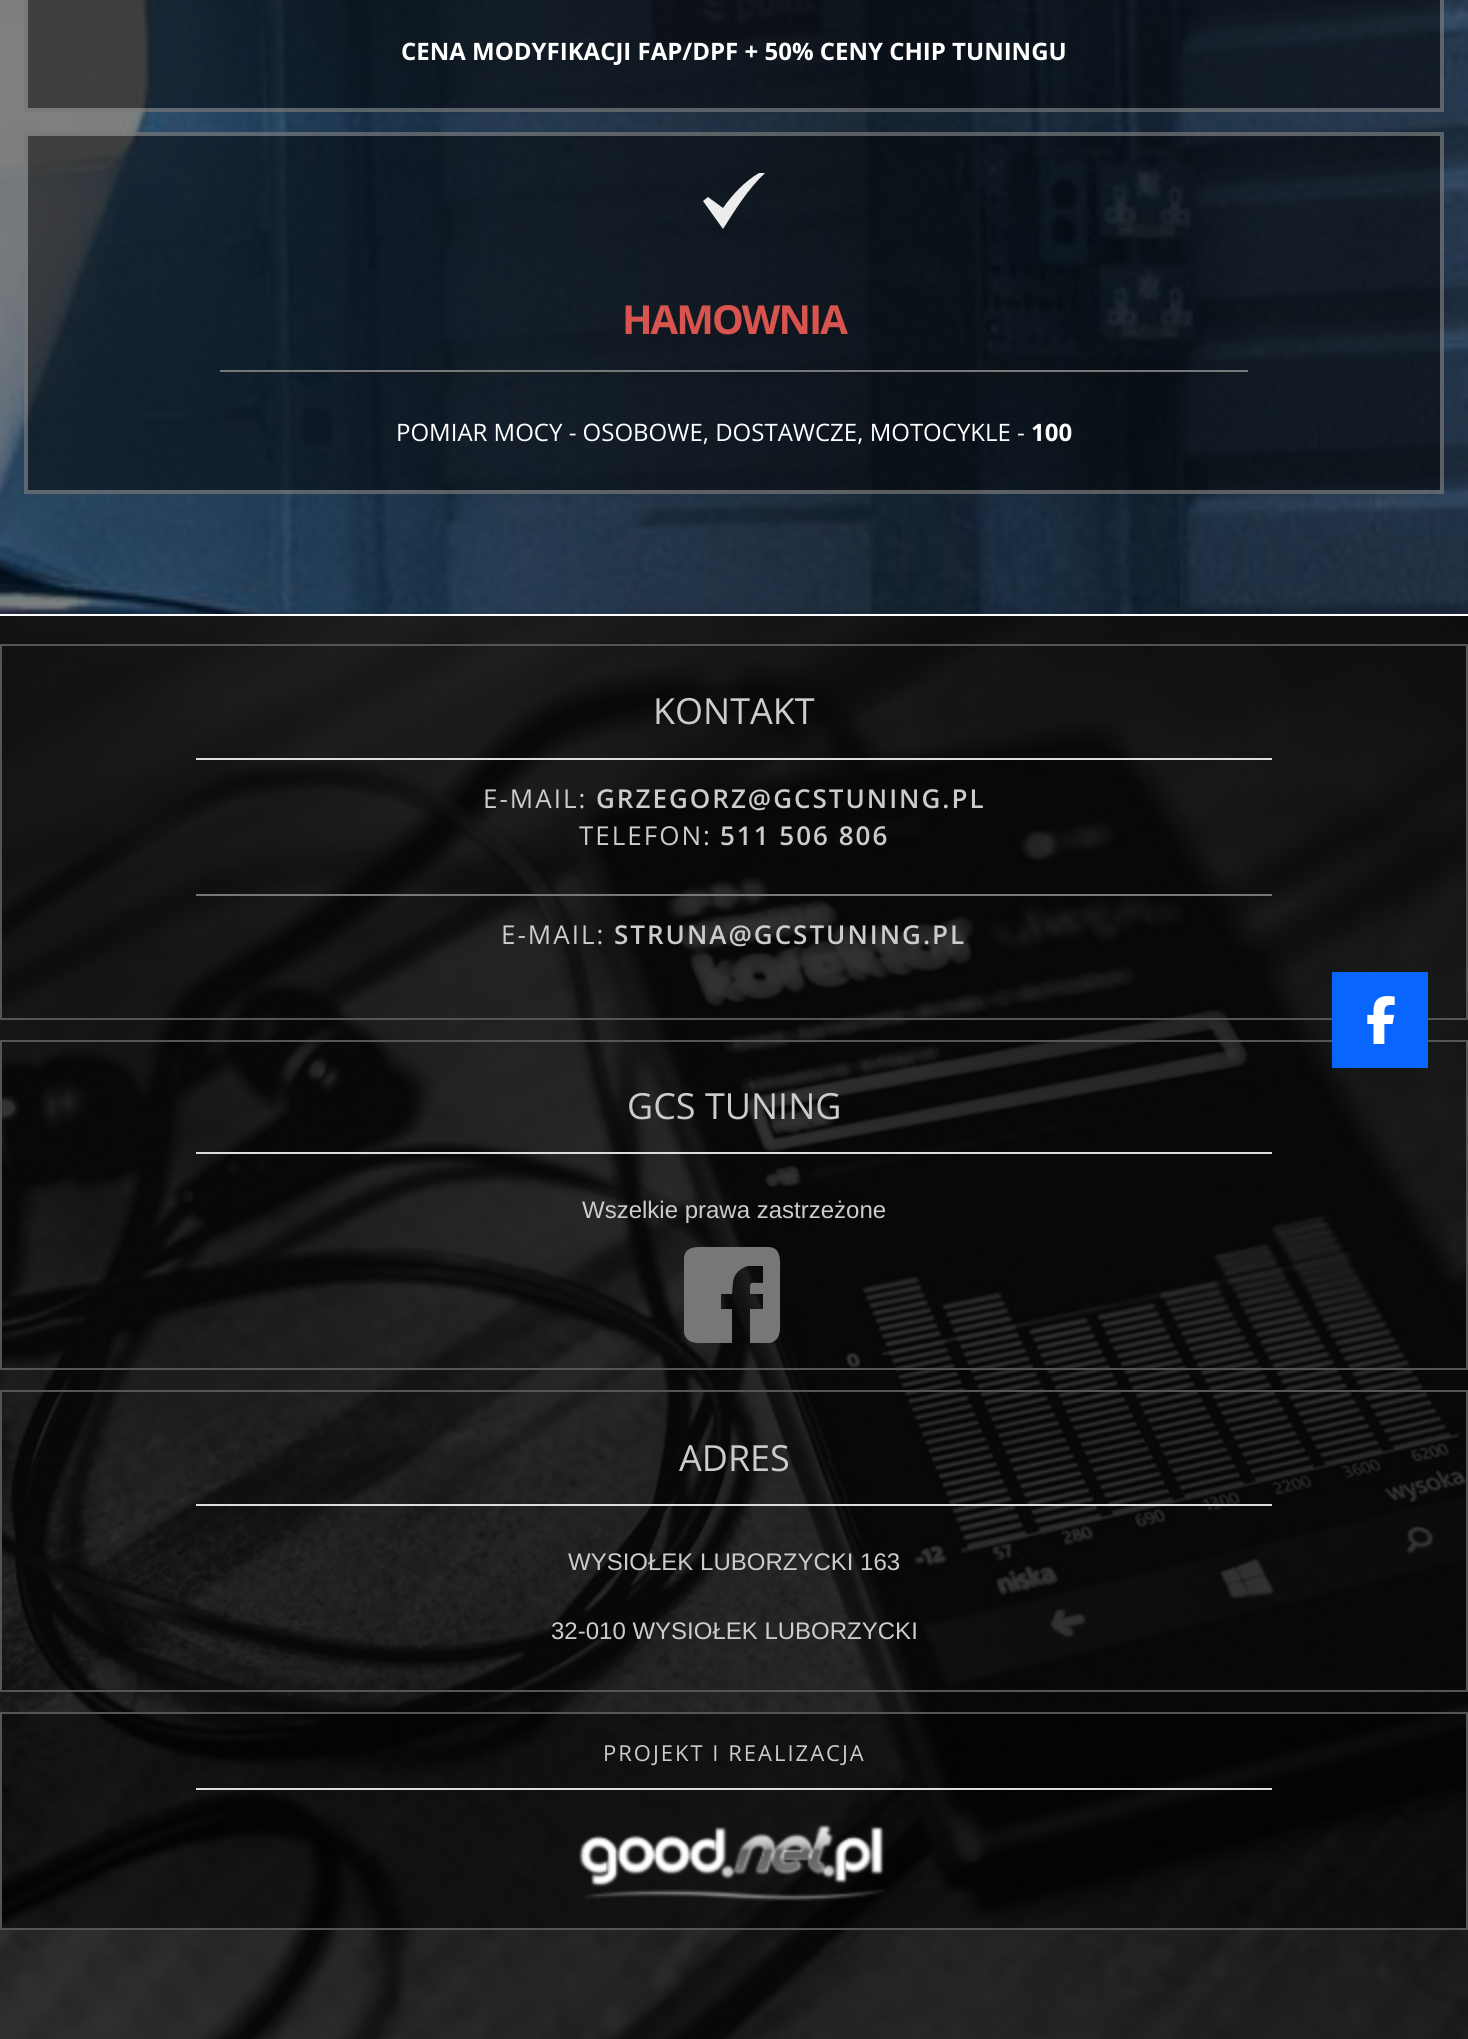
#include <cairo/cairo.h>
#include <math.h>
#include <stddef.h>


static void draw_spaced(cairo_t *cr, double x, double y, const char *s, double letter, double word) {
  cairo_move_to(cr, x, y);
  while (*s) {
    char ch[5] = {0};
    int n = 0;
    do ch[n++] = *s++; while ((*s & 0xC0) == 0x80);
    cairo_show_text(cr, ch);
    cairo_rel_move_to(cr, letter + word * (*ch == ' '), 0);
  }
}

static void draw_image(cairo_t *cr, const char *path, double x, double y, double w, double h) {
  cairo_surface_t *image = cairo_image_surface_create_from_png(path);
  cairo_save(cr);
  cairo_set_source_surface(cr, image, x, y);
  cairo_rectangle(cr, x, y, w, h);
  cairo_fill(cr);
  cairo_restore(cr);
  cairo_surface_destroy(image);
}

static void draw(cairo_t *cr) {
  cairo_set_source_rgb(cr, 1, 1, 1);
  cairo_paint(cr);
  draw_image(cr, "images/1.png", 0, 0, 1468, 614);
  cairo_set_source_rgba(cr, 0, 0, 0, 0.5);
  cairo_rectangle(cr, 24, 0, 1420, 112);
  cairo_fill(cr);
  cairo_rectangle(cr, 26, -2, 1416, 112);
  cairo_set_source_rgba(cr, 221 / 255.0, 221 / 255.0, 221 / 255.0, 0.37);
  cairo_set_line_width(cr, 4);
  cairo_stroke(cr);
  cairo_set_source_rgba(cr, 0, 0, 0, 0.5);
  cairo_rectangle(cr, 24, 132, 1420, 362);
  cairo_fill(cr);
  cairo_rectangle(cr, 26, 134, 1416, 358);
  cairo_set_source_rgba(cr, 221 / 255.0, 221 / 255.0, 221 / 255.0, 0.37);
  cairo_stroke(cr);
  cairo_set_source_rgb(cr, 237 / 255.0, 237 / 255.0, 237 / 255.0);
  cairo_new_path(cr);
  cairo_move_to(cr, 703, 201);
  cairo_line_to(cr, 708, 197);
  cairo_line_to(cr, 723, 208);
  cairo_curve_to(cr, 732, 195, 745, 181, 759, 173);
  cairo_line_to(cr, 765, 173);
  cairo_curve_to(cr, 748, 189, 735, 210, 723, 229);
  cairo_close_path(cr);
  cairo_fill(cr);
  cairo_set_source_rgb(cr, 119 / 255.0, 119 / 255.0, 119 / 255.0);
  cairo_rectangle(cr, 220, 370, 1028, 2);
  cairo_fill(cr);
  draw_image(cr, "images/2.png", 0, 616, 1468, 1423);
  cairo_rectangle(cr, 1, 645, 1466, 374);
  cairo_set_source_rgb(cr, 85 / 255.0, 85 / 255.0, 85 / 255.0);
  cairo_set_line_width(cr, 2);
  cairo_stroke(cr);
  cairo_set_source_rgb(cr, 221 / 255.0, 221 / 255.0, 221 / 255.0);
  cairo_rectangle(cr, 196, 758, 1076, 2);
  cairo_fill(cr);
  cairo_set_source_rgb(cr, 119 / 255.0, 119 / 255.0, 119 / 255.0);
  cairo_rectangle(cr, 196, 894, 1076, 2);
  cairo_fill(cr);
  cairo_rectangle(cr, 1, 1041, 1466, 328);
  cairo_set_source_rgb(cr, 85 / 255.0, 85 / 255.0, 85 / 255.0);
  cairo_stroke(cr);
  cairo_set_source_rgb(cr, 221 / 255.0, 221 / 255.0, 221 / 255.0);
  cairo_rectangle(cr, 196, 1152, 1076, 2);
  cairo_fill(cr);
  cairo_set_source_rgb(cr, 119 / 255.0, 119 / 255.0, 119 / 255.0);
  cairo_new_path(cr);
  cairo_move_to(cr, 768, 1247);
  cairo_curve_to(cr, 782, 1247, 780, 1262, 780, 1271);
  cairo_line_to(cr, 780, 1319);
  cairo_curve_to(cr, 780, 1327, 782, 1340, 770, 1343);
  cairo_line_to(cr, 750, 1343);
  cairo_line_to(cr, 750, 1309);
  cairo_line_to(cr, 763, 1309);
  cairo_line_to(cr, 763, 1294);
  cairo_line_to(cr, 750, 1294);
  cairo_curve_to(cr, 750, 1280, 749, 1283, 763, 1283);
  cairo_line_to(cr, 763, 1266);
  cairo_line_to(cr, 748, 1266);
  cairo_curve_to(cr, 740, 1268, 734, 1274, 733, 1282);
  cairo_line_to(cr, 732, 1294);
  cairo_line_to(cr, 721, 1294);
  cairo_line_to(cr, 721, 1309);
  cairo_line_to(cr, 732, 1309);
  cairo_line_to(cr, 732, 1343);
  cairo_line_to(cr, 708, 1343);
  cairo_curve_to(cr, 699, 1343, 687, 1345, 684, 1333);
  cairo_line_to(cr, 684, 1258);
  cairo_curve_to(cr, 685, 1245, 699, 1247, 708, 1247);
  cairo_close_path(cr);
  cairo_fill(cr);
  cairo_rectangle(cr, 1, 1391, 1466, 300);
  cairo_set_source_rgb(cr, 85 / 255.0, 85 / 255.0, 85 / 255.0);
  cairo_stroke(cr);
  cairo_set_source_rgb(cr, 221 / 255.0, 221 / 255.0, 221 / 255.0);
  cairo_rectangle(cr, 196, 1504, 1076, 2);
  cairo_fill(cr);
  cairo_set_source_rgba(cr, 0, 0, 0, 0.5);
  cairo_rectangle(cr, 1, 1713, 1466, 216);
  cairo_fill_preserve(cr);
  cairo_set_source_rgb(cr, 85 / 255.0, 85 / 255.0, 85 / 255.0);
  cairo_stroke(cr);
  cairo_set_source_rgb(cr, 221 / 255.0, 221 / 255.0, 221 / 255.0);
  cairo_rectangle(cr, 196, 1788, 1076, 2);
  cairo_fill(cr);
  draw_image(cr, "images/3.png", 578, 1824, 307, 77);
  cairo_set_source_rgb(cr, 8 / 255.0, 102 / 255.0, 1);
  cairo_rectangle(cr, 1332, 972, 96, 96);
  cairo_fill(cr);
  draw_image(cr, "images/4.png", 1367, 996, 28, 48);
  cairo_select_font_face(cr, "Open Sans", CAIRO_FONT_SLANT_NORMAL, CAIRO_FONT_WEIGHT_BOLD);
  cairo_set_font_size(cr, 24);
  cairo_set_source_rgb(cr, 1, 1, 1);
  cairo_move_to(cr, 401, 60);
  cairo_show_text(cr, "CENA MODYFIKACJI FAP/DPF + 50% CENY CHIP TUNINGU");
  cairo_set_font_size(cr, 40);
  cairo_set_source_rgb(cr, 216 / 255.0, 84 / 255.0, 79 / 255.0);
  draw_spaced(cr, 622, 334, "HAMOWNIA", -2, 0);
  cairo_select_font_face(cr, "Open Sans", CAIRO_FONT_SLANT_NORMAL, CAIRO_FONT_WEIGHT_NORMAL);
  cairo_set_font_size(cr, 24);
  cairo_set_source_rgb(cr, 1, 1, 1);
  cairo_move_to(cr, 396, 441);
  cairo_show_text(cr, "POMIAR MOCY - OSOBOWE, DOSTAWCZE, MOTOCYKLE -");
  cairo_select_font_face(cr, "Open Sans", CAIRO_FONT_SLANT_NORMAL, CAIRO_FONT_WEIGHT_BOLD);
  cairo_move_to(cr, 1031, 441);
  cairo_show_text(cr, "100");
  cairo_select_font_face(cr, "Open Sans", CAIRO_FONT_SLANT_NORMAL, CAIRO_FONT_WEIGHT_NORMAL);
  cairo_set_font_size(cr, 36);
  cairo_set_source_rgb(cr, 204 / 255.0, 204 / 255.0, 204 / 255.0);
  cairo_move_to(cr, 653, 724);
  cairo_show_text(cr, "KONTAKT");
  cairo_set_font_size(cr, 26);
  draw_spaced(cr, 483, 808, "E-MAIL:", 2, 0);
  cairo_select_font_face(cr, "Open Sans SemiBold", CAIRO_FONT_SLANT_NORMAL, CAIRO_FONT_WEIGHT_NORMAL);
  draw_spaced(cr, 596, 808, "GRZEGORZ@GCSTUNING.PL", 2, 0);
  cairo_select_font_face(cr, "Open Sans", CAIRO_FONT_SLANT_NORMAL, CAIRO_FONT_WEIGHT_NORMAL);
  draw_spaced(cr, 579, 845, "TELEFON:", 2, 0);
  cairo_select_font_face(cr, "Open Sans SemiBold", CAIRO_FONT_SLANT_NORMAL, CAIRO_FONT_WEIGHT_NORMAL);
  draw_spaced(cr, 720, 845, "511 506 806", 2, 0);
  cairo_select_font_face(cr, "Open Sans", CAIRO_FONT_SLANT_NORMAL, CAIRO_FONT_WEIGHT_NORMAL);
  draw_spaced(cr, 501, 944, "E-MAIL:", 2, 0);
  cairo_select_font_face(cr, "Open Sans SemiBold", CAIRO_FONT_SLANT_NORMAL, CAIRO_FONT_WEIGHT_NORMAL);
  draw_spaced(cr, 614, 944, "STRUNA@GCSTUNING.PL", 2, 0);
  cairo_select_font_face(cr, "Open Sans", CAIRO_FONT_SLANT_NORMAL, CAIRO_FONT_WEIGHT_NORMAL);
  cairo_set_font_size(cr, 36);
  cairo_move_to(cr, 627, 1119);
  cairo_show_text(cr, "GCS TUNING");
  cairo_select_font_face(cr, "Liberation Sans", CAIRO_FONT_SLANT_NORMAL, CAIRO_FONT_WEIGHT_NORMAL);
  cairo_set_font_size(cr, 24);
  cairo_move_to(cr, 582, 1218);
  cairo_show_text(cr, "Wszelkie prawa zastrzeżone");
  cairo_select_font_face(cr, "Open Sans", CAIRO_FONT_SLANT_NORMAL, CAIRO_FONT_WEIGHT_NORMAL);
  cairo_set_font_size(cr, 36);
  cairo_move_to(cr, 679, 1471);
  cairo_show_text(cr, "ADRES");
  cairo_select_font_face(cr, "Liberation Sans", CAIRO_FONT_SLANT_NORMAL, CAIRO_FONT_WEIGHT_NORMAL);
  cairo_set_font_size(cr, 24);
  cairo_move_to(cr, 568, 1570);
  cairo_show_text(cr, "WYSIOŁEK LUBORZYCKI 163");
  cairo_move_to(cr, 551, 1639);
  cairo_show_text(cr, "32-010 WYSIOŁEK LUBORZYCKI");
  cairo_select_font_face(cr, "Open Sans", CAIRO_FONT_SLANT_NORMAL, CAIRO_FONT_WEIGHT_NORMAL);
  cairo_set_font_size(cr, 22);
  draw_spaced(cr, 603, 1761, "PROJEKT I REALIZACJA", 2, 0);
}

int main(void) {
  cairo_surface_t *surface = cairo_image_surface_create(CAIRO_FORMAT_RGB24, 1468, 2039);
  cairo_t *cr = cairo_create(surface);
  cairo_font_options_t *options = cairo_font_options_create();
  cairo_font_options_set_hint_metrics(options, CAIRO_HINT_METRICS_OFF);
  cairo_font_options_set_hint_style(options, CAIRO_HINT_STYLE_NONE);
  cairo_set_font_options(cr, options);
  cairo_set_miter_limit(cr, 4);
  draw(cr);
  cairo_surface_write_to_png(surface, "out.png");
  cairo_font_options_destroy(options);
  cairo_destroy(cr);
  cairo_surface_destroy(surface);
  return 0;
}
